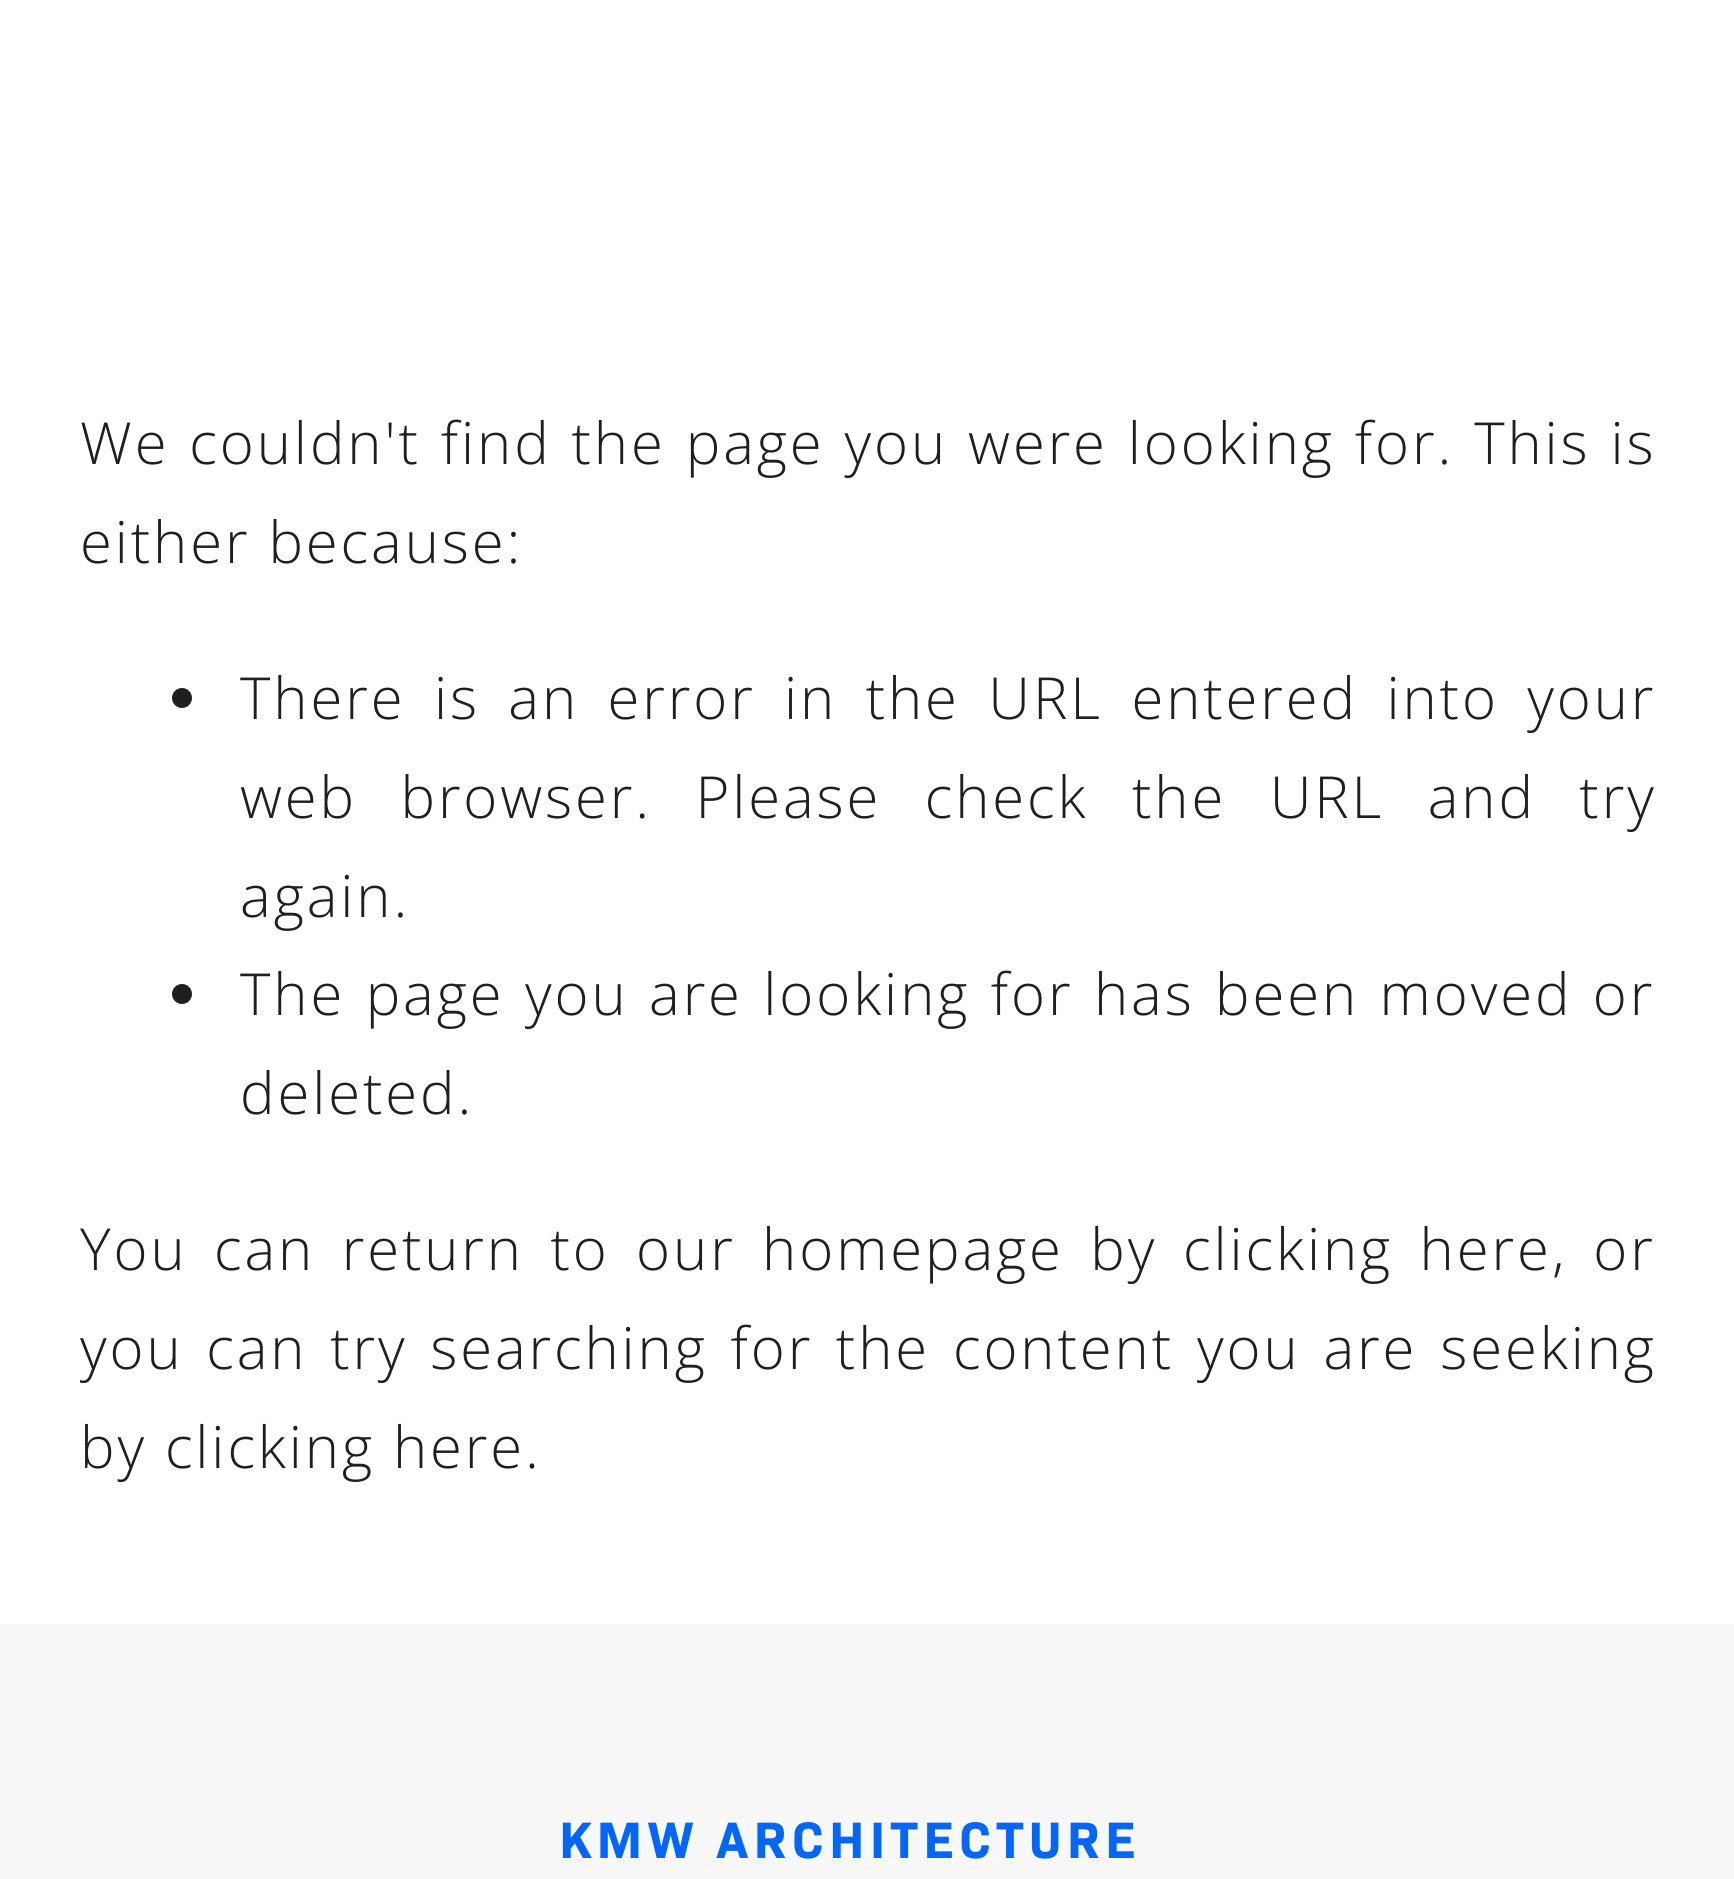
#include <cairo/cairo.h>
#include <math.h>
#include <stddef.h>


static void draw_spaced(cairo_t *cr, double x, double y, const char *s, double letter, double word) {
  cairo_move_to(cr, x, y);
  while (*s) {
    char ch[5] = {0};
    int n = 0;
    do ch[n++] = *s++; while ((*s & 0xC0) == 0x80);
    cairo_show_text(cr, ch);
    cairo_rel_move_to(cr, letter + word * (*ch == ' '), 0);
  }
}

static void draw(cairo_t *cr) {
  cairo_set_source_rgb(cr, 248 / 255.0, 248 / 255.0, 248 / 255.0);
  cairo_paint(cr);
  cairo_set_source_rgb(cr, 1, 1, 1);
  cairo_rectangle(cr, 0, 0, 1734, 1624);
  cairo_fill(cr);
  cairo_set_source_rgb(cr, 31 / 255.0, 31 / 255.0, 31 / 255.0);
  cairo_arc(cr, 182, 698, 10, 0, 2 * M_PI);
  cairo_fill(cr);
  cairo_arc(cr, 182, 994, 10, 0, 2 * M_PI);
  cairo_fill(cr);
  cairo_select_font_face(cr, "Open Sans Light", CAIRO_FONT_SLANT_NORMAL, CAIRO_FONT_WEIGHT_NORMAL);
  cairo_set_font_size(cr, 58);
  draw_spaced(cr, 80, 464, "We couldn't find the page you were looking for. This is", 2.9, 2);
  draw_spaced(cr, 80, 563, "either because:", 2.9, 0);
  draw_spaced(cr, 240, 719, "There is an error in the URL entered into your", 2.9, 10.5);
  draw_spaced(cr, 240, 818, "web browser. Please check the URL and try", 2.9, 25.5);
  draw_spaced(cr, 240, 917, "again.", 2.9, 0);
  draw_spaced(cr, 240, 1015, "The page you are looking for has been moved or", 2.9, 2.5);
  draw_spaced(cr, 240, 1114, "deleted.", 2.9, 0);
  draw_spaced(cr, 80, 1270, "You can return to our homepage by", 2.9, 8.5);
  draw_spaced(cr, 1183, 1270, "clicking here", 2.9, 8.5);
  draw_spaced(cr, 1552, 1270, ", or", 2.9, 8);
  draw_spaced(cr, 80, 1369, "you can try searching for the", 2.9, 4.75);
  draw_spaced(cr, 953, 1369, "content you are seeking", 2.9, 5);
  draw_spaced(cr, 80, 1468, "by clicking here.", 2.9, 0);
  cairo_select_font_face(cr, "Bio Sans", CAIRO_FONT_SLANT_NORMAL, CAIRO_FONT_WEIGHT_BOLD);
  cairo_set_font_size(cr, 52);
  cairo_set_source_rgb(cr, 0, 102 / 255.0, 1);
  draw_spaced(cr, 559, 1858, "KMW ARCHITECTURE", 5.25, 0);
}

int main(void) {
  cairo_surface_t *surface = cairo_image_surface_create(CAIRO_FORMAT_RGB24, 1734, 1879);
  cairo_t *cr = cairo_create(surface);
  cairo_font_options_t *options = cairo_font_options_create();
  cairo_font_options_set_hint_metrics(options, CAIRO_HINT_METRICS_OFF);
  cairo_font_options_set_hint_style(options, CAIRO_HINT_STYLE_NONE);
  cairo_set_font_options(cr, options);
  cairo_set_miter_limit(cr, 4);
  draw(cr);
  cairo_surface_write_to_png(surface, "out.png");
  cairo_font_options_destroy(options);
  cairo_destroy(cr);
  cairo_surface_destroy(surface);
  return 0;
}
